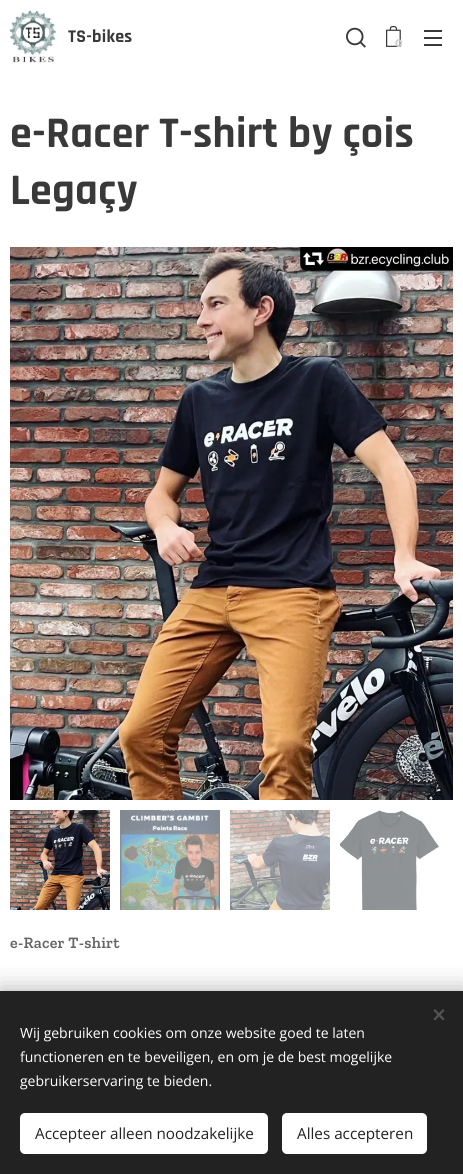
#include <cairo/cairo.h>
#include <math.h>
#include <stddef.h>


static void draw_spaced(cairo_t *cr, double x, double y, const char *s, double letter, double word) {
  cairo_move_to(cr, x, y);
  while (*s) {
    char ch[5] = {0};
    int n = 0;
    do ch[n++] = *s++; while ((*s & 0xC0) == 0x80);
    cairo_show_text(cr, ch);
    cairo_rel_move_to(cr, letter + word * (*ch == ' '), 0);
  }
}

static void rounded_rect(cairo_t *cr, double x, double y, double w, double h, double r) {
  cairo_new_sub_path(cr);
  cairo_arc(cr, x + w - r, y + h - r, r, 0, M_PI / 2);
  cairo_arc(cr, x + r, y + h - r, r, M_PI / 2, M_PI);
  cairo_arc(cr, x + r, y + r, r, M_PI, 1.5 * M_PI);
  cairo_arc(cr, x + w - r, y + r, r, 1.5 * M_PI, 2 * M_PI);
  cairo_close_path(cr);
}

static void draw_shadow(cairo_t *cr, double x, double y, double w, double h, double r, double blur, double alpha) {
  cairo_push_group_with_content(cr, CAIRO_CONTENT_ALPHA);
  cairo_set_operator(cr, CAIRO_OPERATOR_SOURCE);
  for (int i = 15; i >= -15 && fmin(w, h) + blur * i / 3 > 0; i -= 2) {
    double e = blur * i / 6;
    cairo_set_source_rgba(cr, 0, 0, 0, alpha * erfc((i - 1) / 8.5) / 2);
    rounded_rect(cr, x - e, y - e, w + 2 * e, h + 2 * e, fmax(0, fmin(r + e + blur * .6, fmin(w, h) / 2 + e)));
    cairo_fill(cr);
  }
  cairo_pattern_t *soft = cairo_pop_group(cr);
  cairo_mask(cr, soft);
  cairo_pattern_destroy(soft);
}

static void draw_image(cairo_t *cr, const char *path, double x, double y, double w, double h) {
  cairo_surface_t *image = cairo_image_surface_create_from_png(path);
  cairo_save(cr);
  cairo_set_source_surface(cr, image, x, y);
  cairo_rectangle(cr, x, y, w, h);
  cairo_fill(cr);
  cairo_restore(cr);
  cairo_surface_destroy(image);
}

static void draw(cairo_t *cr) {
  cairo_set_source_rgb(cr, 1, 1, 1);
  cairo_paint(cr);
  draw_image(cr, "images/1.png", 10, 11, 46, 52);
  draw_image(cr, "images/2.png", 346, 27, 20, 21);
  draw_image(cr, "images/3.png", 386, 25, 15, 22);
  cairo_set_source_rgb(cr, 57 / 255.0, 57 / 255.0, 57 / 255.0);
  cairo_rectangle(cr, 424, 37, 18, 2);
  cairo_fill(cr);
  cairo_rectangle(cr, 424, 30, 18, 2);
  cairo_fill(cr);
  cairo_rectangle(cr, 424, 44, 18, 2);
  cairo_fill(cr);
  draw_image(cr, "images/4.png", 10, 247, 443, 553);
  draw_image(cr, "images/5.png", 10, 810, 100, 100);
  draw_image(cr, "images/6.png", 120, 810, 100, 100);
  draw_image(cr, "images/7.png", 230, 810, 100, 100);
  draw_image(cr, "images/8.png", 340, 810, 99, 100);
  cairo_set_source_rgb(cr, 0, 0, 0);
  draw_shadow(cr, 0, 991, 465, 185, 0, 12.5, 0.33);
  cairo_set_source_rgb(cr, 34 / 255.0, 34 / 255.0, 34 / 255.0);
  cairo_rectangle(cr, 0, 991, 463, 183);
  cairo_fill(cr);
  cairo_set_source_rgb(cr, 85 / 255.0, 85 / 255.0, 85 / 255.0);
  cairo_new_path(cr);
  cairo_move_to(cr, 433.5, 1019);
  cairo_line_to(cr, 443, 1009);
  cairo_line_to(cr, 444.5, 1010.5);
  cairo_line_to(cr, 435, 1020.5);
  cairo_close_path(cr);
  cairo_fill(cr);
  cairo_new_path(cr);
  cairo_move_to(cr, 435, 1009);
  cairo_line_to(cr, 444.5, 1019);
  cairo_line_to(cr, 443, 1020.5);
  cairo_line_to(cr, 433.5, 1010.5);
  cairo_close_path(cr);
  cairo_fill(cr);
  cairo_set_source_rgb(cr, 1, 1, 1);
  rounded_rect(cr, 20, 1113, 248, 41, 5);
  cairo_fill(cr);
  rounded_rect(cr, 282, 1113, 145, 41, 5);
  cairo_fill(cr);
  cairo_select_font_face(cr, "Rajdhani", CAIRO_FONT_SLANT_NORMAL, CAIRO_FONT_WEIGHT_BOLD);
  cairo_set_font_size(cr, 18);
  cairo_set_source_rgb(cr, 57 / 255.0, 57 / 255.0, 57 / 255.0);
  draw_spaced(cr, 68, 42, "TS-bikes", 0.25, 0);
  cairo_select_font_face(cr, "Montserrat", CAIRO_FONT_SLANT_NORMAL, CAIRO_FONT_WEIGHT_BOLD);
  cairo_set_font_size(cr, 11);
  cairo_set_source_rgb(cr, 203 / 255.0, 203 / 255.0, 203 / 255.0);
  cairo_move_to(cr, 395, 47);
  cairo_show_text(cr, "0");
  cairo_select_font_face(cr, "Rajdhani", CAIRO_FONT_SLANT_NORMAL, CAIRO_FONT_WEIGHT_BOLD);
  cairo_set_font_size(cr, 44);
  cairo_set_source_rgb(cr, 57 / 255.0, 57 / 255.0, 57 / 255.0);
  draw_spaced(cr, 10, 147, "e-Racer T-shirt by çois", 0.25, 0);
  draw_spaced(cr, 10, 204, "Legaçy", 0.25, 0);
  cairo_select_font_face(cr, "Zilla Slab SemiBold", CAIRO_FONT_SLANT_NORMAL, CAIRO_FONT_WEIGHT_NORMAL);
  cairo_set_font_size(cr, 16);
  cairo_set_source_rgb(cr, 102 / 255.0, 102 / 255.0, 102 / 255.0);
  draw_spaced(cr, 10, 948, "e-Racer T-shirt", 0.25, 0);
  cairo_select_font_face(cr, "Open Sans", CAIRO_FONT_SLANT_NORMAL, CAIRO_FONT_WEIGHT_NORMAL);
  cairo_set_font_size(cr, 14);
  cairo_set_source_rgb(cr, 1, 1, 1);
  cairo_move_to(cr, 20, 1038);
  cairo_show_text(cr, "Wij gebruiken cookies om onze website goed te laten");
  cairo_move_to(cr, 20, 1062);
  cairo_show_text(cr, "functioneren en te beveiligen, en om je de best mogelijke");
  cairo_move_to(cr, 20, 1086);
  cairo_show_text(cr, "gebruikerservaring te bieden.");
  cairo_set_font_size(cr, 15.25);
  cairo_set_source_rgb(cr, 34 / 255.0, 34 / 255.0, 34 / 255.0);
  cairo_move_to(cr, 35, 1139);
  cairo_show_text(cr, "Accepteer alleen noodzakelijke");
  cairo_move_to(cr, 297, 1139);
  cairo_show_text(cr, "Alles accepteren");
}

int main(void) {
  cairo_surface_t *surface = cairo_image_surface_create(CAIRO_FORMAT_RGB24, 463, 1174);
  cairo_t *cr = cairo_create(surface);
  cairo_font_options_t *options = cairo_font_options_create();
  cairo_font_options_set_hint_metrics(options, CAIRO_HINT_METRICS_OFF);
  cairo_font_options_set_hint_style(options, CAIRO_HINT_STYLE_NONE);
  cairo_set_font_options(cr, options);
  cairo_set_miter_limit(cr, 4);
  draw(cr);
  cairo_surface_write_to_png(surface, "out.png");
  cairo_font_options_destroy(options);
  cairo_destroy(cr);
  cairo_surface_destroy(surface);
  return 0;
}
